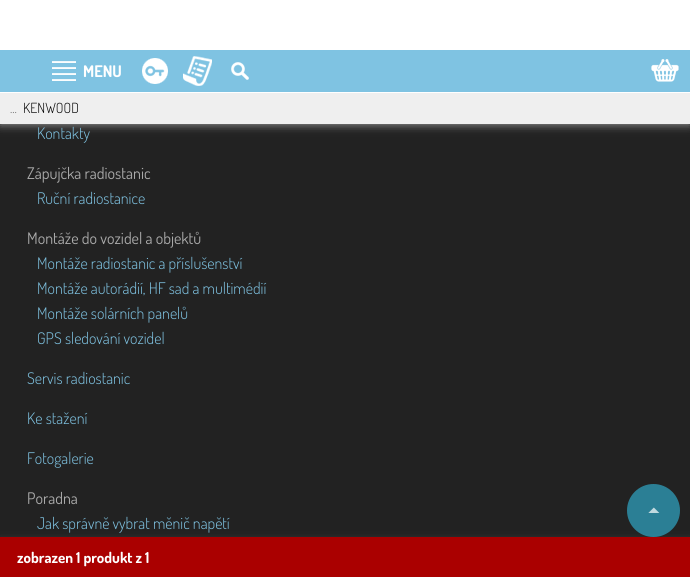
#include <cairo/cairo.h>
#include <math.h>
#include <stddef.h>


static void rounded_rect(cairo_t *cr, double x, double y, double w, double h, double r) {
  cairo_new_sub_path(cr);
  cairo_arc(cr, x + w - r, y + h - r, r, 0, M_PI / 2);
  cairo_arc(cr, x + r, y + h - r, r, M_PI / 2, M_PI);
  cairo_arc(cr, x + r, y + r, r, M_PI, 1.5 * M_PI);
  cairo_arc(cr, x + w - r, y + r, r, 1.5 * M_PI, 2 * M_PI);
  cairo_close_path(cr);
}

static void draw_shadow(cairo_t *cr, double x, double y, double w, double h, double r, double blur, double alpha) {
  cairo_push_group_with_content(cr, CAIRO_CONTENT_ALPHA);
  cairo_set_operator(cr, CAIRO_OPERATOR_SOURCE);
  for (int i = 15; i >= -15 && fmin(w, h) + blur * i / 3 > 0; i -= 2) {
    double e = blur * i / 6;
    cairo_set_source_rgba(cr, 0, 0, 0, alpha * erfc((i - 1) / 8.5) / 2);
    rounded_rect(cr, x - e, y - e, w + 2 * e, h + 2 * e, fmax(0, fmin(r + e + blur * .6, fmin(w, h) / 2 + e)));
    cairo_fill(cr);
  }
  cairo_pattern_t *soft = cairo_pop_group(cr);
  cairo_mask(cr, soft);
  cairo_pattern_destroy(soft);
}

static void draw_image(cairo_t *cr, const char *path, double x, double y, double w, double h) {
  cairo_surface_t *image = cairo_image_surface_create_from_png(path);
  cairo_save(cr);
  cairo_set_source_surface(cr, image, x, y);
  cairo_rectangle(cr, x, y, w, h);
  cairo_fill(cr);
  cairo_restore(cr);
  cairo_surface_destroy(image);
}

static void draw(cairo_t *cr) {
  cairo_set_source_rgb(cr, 34 / 255.0, 34 / 255.0, 34 / 255.0);
  cairo_paint(cr);
  cairo_set_source_rgb(cr, 170 / 255.0, 170 / 255.0, 170 / 255.0);
  draw_shadow(cr, 0, 92, 690, 32, 0, 5, 1);
  cairo_set_source_rgb(cr, 127 / 255.0, 195 / 255.0, 226 / 255.0);
  cairo_rectangle(cr, 0, 50, 690, 42);
  cairo_fill(cr);
  draw_image(cr, "images/1.png", 52, 61, 24, 20);
  draw_image(cr, "images/2.png", 142, 58, 26, 26);
  draw_image(cr, "images/3.png", 183, 56, 29, 30);
  draw_image(cr, "images/4.png", 231, 62, 18, 18);
  draw_image(cr, "images/5.png", 651, 59, 28, 23);
  cairo_set_source_rgb(cr, 239 / 255.0, 239 / 255.0, 239 / 255.0);
  cairo_rectangle(cr, 0, 93, 690, 31);
  cairo_fill(cr);
  cairo_set_source_rgb(cr, 1, 1, 1);
  cairo_rectangle(cr, 0, 92, 690, 1);
  cairo_fill(cr);
  cairo_rectangle(cr, 0, 0, 690, 50);
  cairo_fill(cr);
  cairo_set_source_rgb(cr, 51 / 255.0, 51 / 255.0, 51 / 255.0);
  draw_shadow(cr, 0, 537, 690, 40, 0, 2.5, 1);
  cairo_set_source_rgb(cr, 170 / 255.0, 0, 0);
  cairo_rectangle(cr, 0, 537, 690, 40);
  cairo_fill(cr);
  cairo_set_source_rgba(cr, 47 / 255.0, 167 / 255.0, 199 / 255.0, 0.7);
  cairo_arc(cr, 653.5, 510.5, 26.5, 0, 2 * M_PI);
  cairo_fill(cr);
  draw_image(cr, "images/6.png", 648, 507, 12, 6);
  cairo_select_font_face(cr, "Dosis", CAIRO_FONT_SLANT_NORMAL, CAIRO_FONT_WEIGHT_BOLD);
  cairo_set_font_size(cr, 16);
  cairo_set_source_rgb(cr, 1, 1, 1);
  cairo_move_to(cr, 83, 77);
  cairo_show_text(cr, "MENU");
  cairo_select_font_face(cr, "Dosis Light", CAIRO_FONT_SLANT_NORMAL, CAIRO_FONT_WEIGHT_NORMAL);
  cairo_set_font_size(cr, 14);
  cairo_set_source_rgb(cr, 119 / 255.0, 119 / 255.0, 119 / 255.0);
  cairo_move_to(cr, 10, 113);
  cairo_show_text(cr, "...");
  cairo_set_source_rgb(cr, 0, 0, 0);
  cairo_move_to(cr, 23, 113);
  cairo_show_text(cr, "KENWOOD");
  cairo_set_font_size(cr, 16);
  cairo_set_source_rgb(cr, 127 / 255.0, 195 / 255.0, 226 / 255.0);
  cairo_move_to(cr, 37, 139);
  cairo_show_text(cr, "Kontakty");
  cairo_select_font_face(cr, "Dosis", CAIRO_FONT_SLANT_NORMAL, CAIRO_FONT_WEIGHT_NORMAL);
  cairo_set_source_rgb(cr, 170 / 255.0, 170 / 255.0, 170 / 255.0);
  cairo_move_to(cr, 27, 179);
  cairo_show_text(cr, "Zápujčka radiostanic");
  cairo_select_font_face(cr, "Dosis Light", CAIRO_FONT_SLANT_NORMAL, CAIRO_FONT_WEIGHT_NORMAL);
  cairo_set_source_rgb(cr, 127 / 255.0, 195 / 255.0, 226 / 255.0);
  cairo_move_to(cr, 37, 204);
  cairo_show_text(cr, "Ruční radiostanice");
  cairo_select_font_face(cr, "Dosis", CAIRO_FONT_SLANT_NORMAL, CAIRO_FONT_WEIGHT_NORMAL);
  cairo_set_source_rgb(cr, 170 / 255.0, 170 / 255.0, 170 / 255.0);
  cairo_move_to(cr, 27, 244);
  cairo_show_text(cr, "Montáže do vozidel a objektů");
  cairo_select_font_face(cr, "Dosis Light", CAIRO_FONT_SLANT_NORMAL, CAIRO_FONT_WEIGHT_NORMAL);
  cairo_set_source_rgb(cr, 127 / 255.0, 195 / 255.0, 226 / 255.0);
  cairo_move_to(cr, 37, 269);
  cairo_show_text(cr, "Montáže radiostanic a příslušenství");
  cairo_move_to(cr, 37, 294);
  cairo_show_text(cr, "Montáže autorádií, HF sad a multimédií");
  cairo_move_to(cr, 37, 319);
  cairo_show_text(cr, "Montáže solárních panelů");
  cairo_move_to(cr, 37, 344);
  cairo_show_text(cr, "GPS sledování vozidel");
  cairo_move_to(cr, 27, 384);
  cairo_show_text(cr, "Servis radiostanic");
  cairo_move_to(cr, 27, 424);
  cairo_show_text(cr, "Ke stažení");
  cairo_move_to(cr, 27, 464);
  cairo_show_text(cr, "Fotogalerie");
  cairo_select_font_face(cr, "Dosis", CAIRO_FONT_SLANT_NORMAL, CAIRO_FONT_WEIGHT_NORMAL);
  cairo_set_source_rgb(cr, 170 / 255.0, 170 / 255.0, 170 / 255.0);
  cairo_move_to(cr, 27, 504);
  cairo_show_text(cr, "Poradna");
  cairo_select_font_face(cr, "Dosis Light", CAIRO_FONT_SLANT_NORMAL, CAIRO_FONT_WEIGHT_NORMAL);
  cairo_set_source_rgb(cr, 127 / 255.0, 195 / 255.0, 226 / 255.0);
  cairo_move_to(cr, 37, 529);
  cairo_show_text(cr, "Jak správně vybrat měnič napětí");
  cairo_select_font_face(cr, "Dosis", CAIRO_FONT_SLANT_NORMAL, CAIRO_FONT_WEIGHT_BOLD);
  cairo_set_font_size(cr, 15);
  cairo_set_source_rgb(cr, 1, 1, 1);
  cairo_move_to(cr, 17, 563);
  cairo_show_text(cr, "zobrazen 1 produkt z 1");
}

int main(void) {
  cairo_surface_t *surface = cairo_image_surface_create(CAIRO_FORMAT_RGB24, 690, 577);
  cairo_t *cr = cairo_create(surface);
  cairo_font_options_t *options = cairo_font_options_create();
  cairo_font_options_set_hint_metrics(options, CAIRO_HINT_METRICS_OFF);
  cairo_font_options_set_hint_style(options, CAIRO_HINT_STYLE_NONE);
  cairo_set_font_options(cr, options);
  cairo_set_miter_limit(cr, 4);
  draw(cr);
  cairo_surface_write_to_png(surface, "out.png");
  cairo_font_options_destroy(options);
  cairo_destroy(cr);
  cairo_surface_destroy(surface);
  return 0;
}
